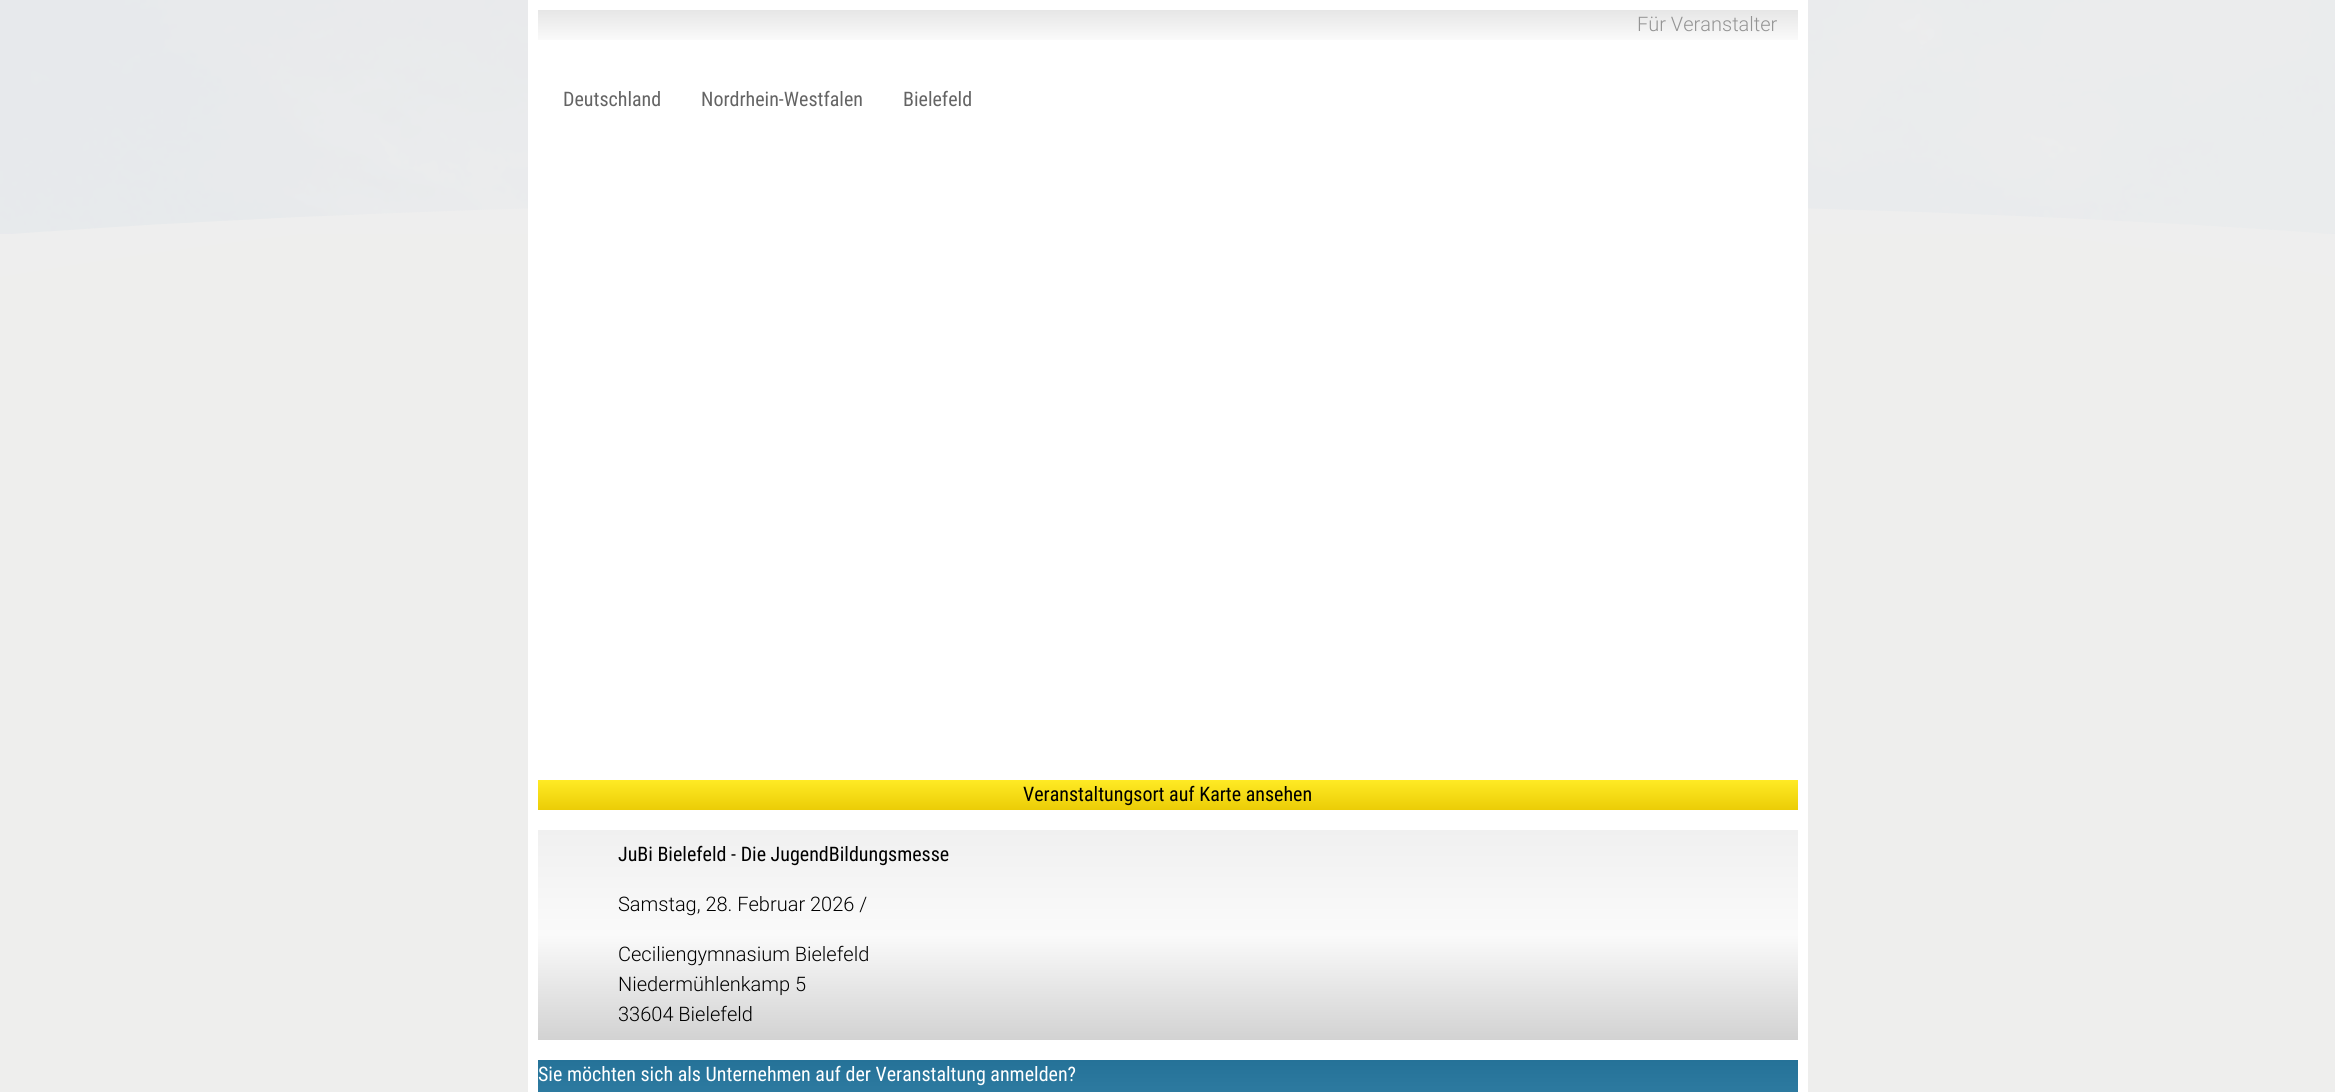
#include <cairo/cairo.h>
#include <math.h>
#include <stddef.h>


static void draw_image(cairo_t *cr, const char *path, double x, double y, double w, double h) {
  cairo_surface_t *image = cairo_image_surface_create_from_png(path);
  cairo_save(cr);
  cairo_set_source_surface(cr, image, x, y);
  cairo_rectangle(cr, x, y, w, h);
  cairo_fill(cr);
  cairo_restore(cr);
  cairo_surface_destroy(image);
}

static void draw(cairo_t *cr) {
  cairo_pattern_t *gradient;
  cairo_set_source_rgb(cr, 1, 1, 1);
  cairo_paint(cr);
  gradient = cairo_pattern_create_radial(0, 0, 0, 0, 0, 1);
  cairo_pattern_set_matrix(gradient, &(cairo_matrix_t){1.0 / 4128, 0, 0, 1.0 / 1159, -1.0 * 1168 / 4128, -1.0 * 819 / 1159});
  cairo_pattern_add_color_stop_rgba(gradient, 0.5, 238 / 255.0, 238 / 255.0, 238 / 255.0, 1);
  cairo_pattern_add_color_stop_rgba(gradient, 0.6, 238 / 255.0, 238 / 255.0, 238 / 255.0, 1);
  cairo_pattern_add_color_stop_rgba(gradient, 1, 238 / 255.0, 238 / 255.0, 238 / 255.0, 1);
  cairo_set_source(cr, gradient);
  cairo_pattern_destroy(gradient);
  cairo_rectangle(cr, 0, 208, 2335, 26);
  cairo_fill(cr);
  draw_image(cr, "images/1.png", 0, 0, 2335, 234);
  gradient = cairo_pattern_create_radial(0, 0, 0, 0, 0, 1);
  cairo_pattern_set_matrix(gradient, &(cairo_matrix_t){1.0 / 4128, 0, 0, 1.0 / 1159, -1.0 * 1168 / 4128, -1.0 * 819 / 1159});
  cairo_pattern_add_color_stop_rgba(gradient, 0.5, 238 / 255.0, 238 / 255.0, 237 / 255.0, 1);
  cairo_pattern_add_color_stop_rgba(gradient, 0.6, 238 / 255.0, 238 / 255.0, 238 / 255.0, 1);
  cairo_pattern_add_color_stop_rgba(gradient, 1, 238 / 255.0, 238 / 255.0, 238 / 255.0, 1);
  cairo_set_source(cr, gradient);
  cairo_pattern_destroy(gradient);
  cairo_rectangle(cr, 0, 234, 2335, 858);
  cairo_fill(cr);
  cairo_set_source_rgb(cr, 1, 1, 1);
  cairo_rectangle(cr, 528, 50, 1280, 720);
  cairo_fill(cr);
  gradient = cairo_pattern_create_linear(1168, 10, 1168, 40);
  cairo_pattern_add_color_stop_rgba(gradient, 0, 230 / 255.0, 230 / 255.0, 230 / 255.0, 1);
  cairo_pattern_add_color_stop_rgba(gradient, 1, 250 / 255.0, 250 / 255.0, 250 / 255.0, 1);
  cairo_set_source(cr, gradient);
  cairo_pattern_destroy(gradient);
  cairo_rectangle(cr, 538, 10, 1260, 30);
  cairo_fill(cr);
  cairo_rectangle(cr, 533, 5, 1270, 40);
  cairo_set_source_rgb(cr, 1, 1, 1);
  cairo_set_line_width(cr, 10);
  cairo_stroke(cr);
  gradient = cairo_pattern_create_linear(1168, 780, 1168, 810);
  cairo_pattern_add_color_stop_rgba(gradient, 0, 1, 234 / 255.0, 36 / 255.0, 1);
  cairo_pattern_add_color_stop_rgba(gradient, 1, 235 / 255.0, 204 / 255.0, 6 / 255.0, 1);
  cairo_set_source(cr, gradient);
  cairo_pattern_destroy(gradient);
  cairo_rectangle(cr, 538, 780, 1260, 30);
  cairo_fill(cr);
  cairo_rectangle(cr, 533, 775, 1270, 40);
  cairo_set_source_rgb(cr, 1, 1, 1);
  cairo_stroke(cr);
  gradient = cairo_pattern_create_linear(1168, 830, 1168, 1040);
  cairo_pattern_add_color_stop_rgba(gradient, 0, 240 / 255.0, 240 / 255.0, 240 / 255.0, 1);
  cairo_pattern_add_color_stop_rgba(gradient, 0.5, 250 / 255.0, 250 / 255.0, 250 / 255.0, 1);
  cairo_pattern_add_color_stop_rgba(gradient, 1, 210 / 255.0, 210 / 255.0, 210 / 255.0, 1);
  cairo_set_source(cr, gradient);
  cairo_pattern_destroy(gradient);
  cairo_rectangle(cr, 538, 830, 1260, 210);
  cairo_fill(cr);
  cairo_rectangle(cr, 533, 825, 1270, 220);
  cairo_set_source_rgb(cr, 1, 1, 1);
  cairo_stroke(cr);
  gradient = cairo_pattern_create_linear(1168, 1060, 1168, 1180);
  cairo_pattern_add_color_stop_rgba(gradient, 0, 37 / 255.0, 114 / 255.0, 152 / 255.0, 1);
  cairo_pattern_add_color_stop_rgba(gradient, 1, 67 / 255.0, 144 / 255.0, 182 / 255.0, 1);
  cairo_set_source(cr, gradient);
  cairo_pattern_destroy(gradient);
  cairo_rectangle(cr, 538, 1060, 1260, 32);
  cairo_fill(cr);
  cairo_rectangle(cr, 533, 1055, 1270, 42);
  cairo_set_source_rgb(cr, 1, 1, 1);
  cairo_stroke(cr);
  cairo_select_font_face(cr, "Roboto Light", CAIRO_FONT_SLANT_NORMAL, CAIRO_FONT_WEIGHT_NORMAL);
  cairo_set_font_size(cr, 20);
  cairo_set_source_rgb(cr, 148 / 255.0, 148 / 255.0, 148 / 255.0);
  cairo_move_to(cr, 1637, 31);
  cairo_show_text(cr, "Für Veranstalter");
  cairo_select_font_face(cr, "Roboto Condensed", CAIRO_FONT_SLANT_NORMAL, CAIRO_FONT_WEIGHT_NORMAL);
  cairo_set_source_rgb(cr, 100 / 255.0, 100 / 255.0, 100 / 255.0);
  cairo_move_to(cr, 563, 106);
  cairo_show_text(cr, "Deutschland");
  cairo_move_to(cr, 701, 106);
  cairo_show_text(cr, "Nordrhein-Westfalen");
  cairo_move_to(cr, 903, 106);
  cairo_show_text(cr, "Bielefeld");
  cairo_set_source_rgb(cr, 0, 0, 0);
  cairo_move_to(cr, 1023, 801);
  cairo_show_text(cr, "Veranstaltungsort auf Karte ansehen");
  cairo_move_to(cr, 618, 861);
  cairo_show_text(cr, "JuBi Bielefeld - Die JugendBildungsmesse");
  cairo_select_font_face(cr, "Roboto Light", CAIRO_FONT_SLANT_NORMAL, CAIRO_FONT_WEIGHT_NORMAL);
  cairo_move_to(cr, 618, 911);
  cairo_show_text(cr, "Samstag, 28. Februar 2026 /");
  cairo_move_to(cr, 618, 961);
  cairo_show_text(cr, "Ceciliengymnasium Bielefeld");
  cairo_move_to(cr, 618, 991);
  cairo_show_text(cr, "Niedermühlenkamp 5");
  cairo_move_to(cr, 618, 1021);
  cairo_show_text(cr, "33604 Bielefeld");
  cairo_select_font_face(cr, "Roboto Condensed", CAIRO_FONT_SLANT_NORMAL, CAIRO_FONT_WEIGHT_NORMAL);
  cairo_set_source_rgb(cr, 1, 1, 1);
  cairo_move_to(cr, 538, 1081);
  cairo_show_text(cr, "Sie möchten sich als Unternehmen auf der Veranstaltung anmelden?");
}

int main(void) {
  cairo_surface_t *surface = cairo_image_surface_create(CAIRO_FORMAT_RGB24, 2335, 1092);
  cairo_t *cr = cairo_create(surface);
  cairo_font_options_t *options = cairo_font_options_create();
  cairo_font_options_set_hint_metrics(options, CAIRO_HINT_METRICS_OFF);
  cairo_font_options_set_hint_style(options, CAIRO_HINT_STYLE_NONE);
  cairo_set_font_options(cr, options);
  cairo_set_miter_limit(cr, 4);
  draw(cr);
  cairo_surface_write_to_png(surface, "out.png");
  cairo_font_options_destroy(options);
  cairo_destroy(cr);
  cairo_surface_destroy(surface);
  return 0;
}
